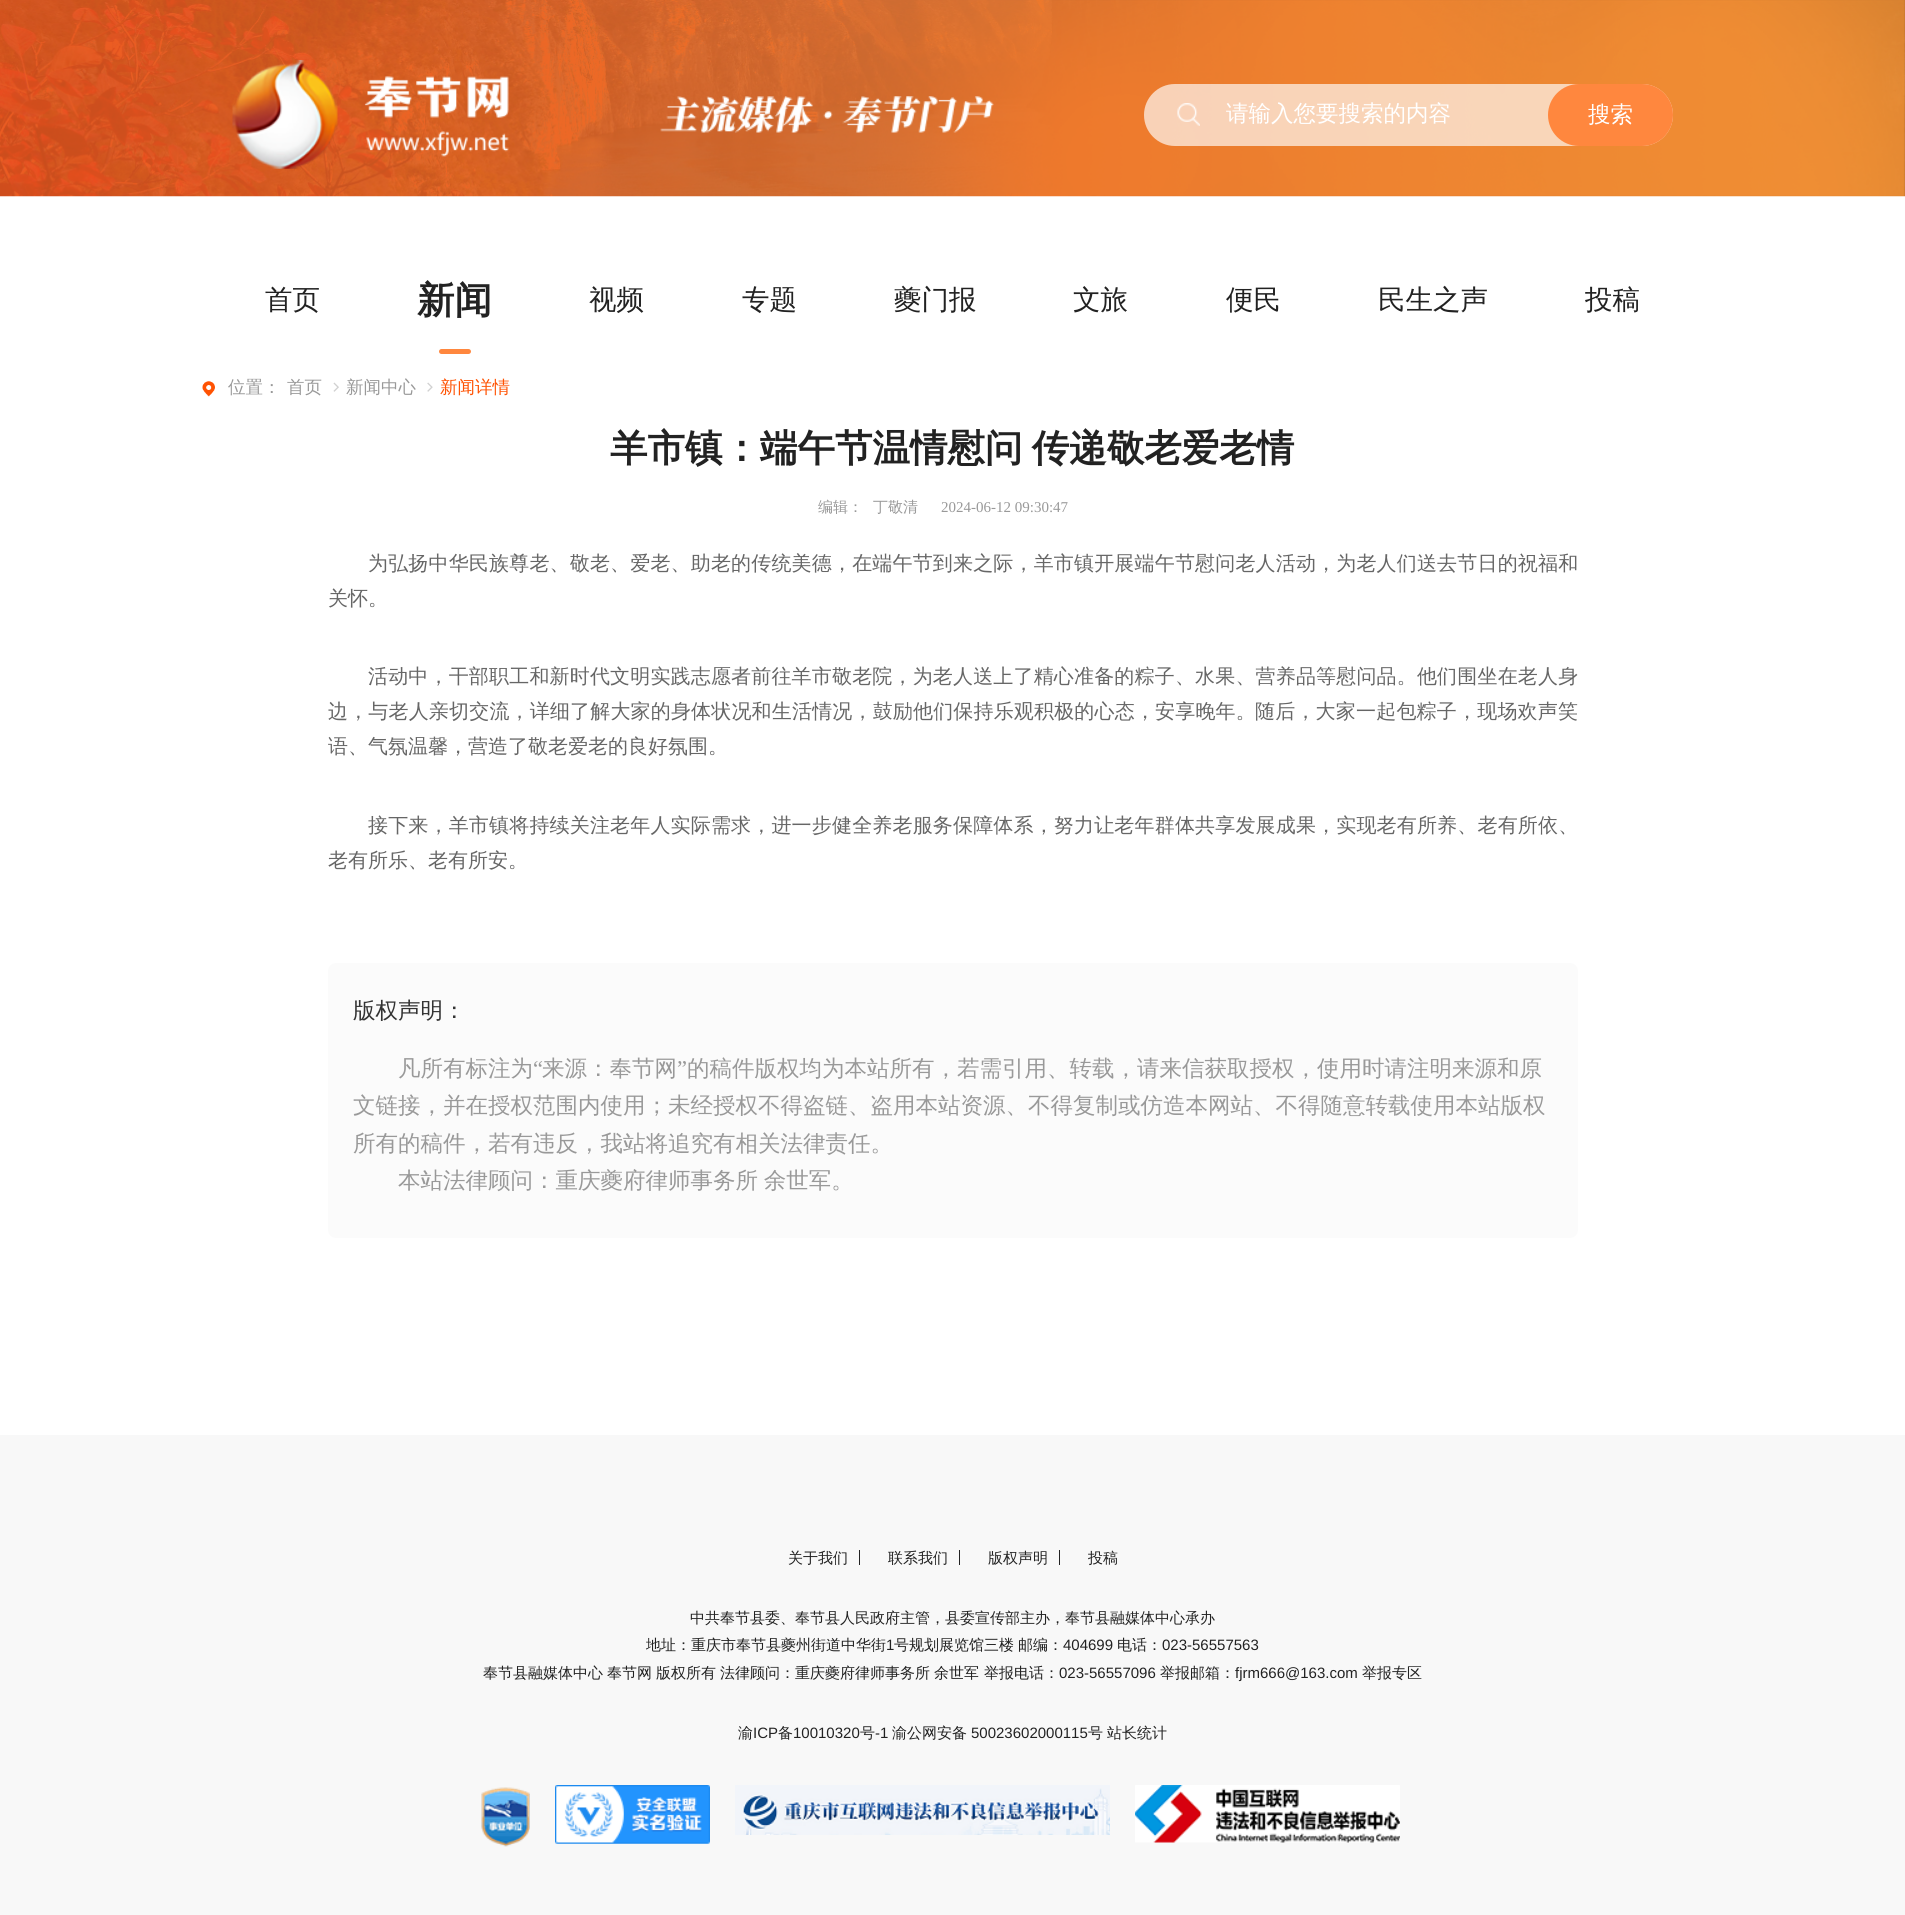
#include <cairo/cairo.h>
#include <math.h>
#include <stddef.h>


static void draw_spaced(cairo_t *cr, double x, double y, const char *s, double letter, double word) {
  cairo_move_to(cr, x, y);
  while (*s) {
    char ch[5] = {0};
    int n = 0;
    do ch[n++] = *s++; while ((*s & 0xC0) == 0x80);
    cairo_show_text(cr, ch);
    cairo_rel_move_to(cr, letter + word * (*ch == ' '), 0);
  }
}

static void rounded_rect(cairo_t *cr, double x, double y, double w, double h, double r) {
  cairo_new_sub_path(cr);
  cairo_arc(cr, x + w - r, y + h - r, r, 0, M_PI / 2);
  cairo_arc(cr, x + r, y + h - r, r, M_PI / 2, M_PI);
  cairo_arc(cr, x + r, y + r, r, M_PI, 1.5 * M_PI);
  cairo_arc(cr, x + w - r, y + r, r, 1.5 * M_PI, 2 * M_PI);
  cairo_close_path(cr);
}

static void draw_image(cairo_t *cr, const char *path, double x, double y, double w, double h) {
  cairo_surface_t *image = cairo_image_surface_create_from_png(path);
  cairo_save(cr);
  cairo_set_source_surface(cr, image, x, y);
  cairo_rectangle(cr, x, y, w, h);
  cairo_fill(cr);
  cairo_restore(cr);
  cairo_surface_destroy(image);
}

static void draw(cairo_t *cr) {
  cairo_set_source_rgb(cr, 1, 1, 1);
  cairo_paint(cr);
  draw_image(cr, "images/1.png", 0, 0, 1905, 197);
  draw_image(cr, "images/2.png", 232, 60, 277, 109);
  draw_image(cr, "images/3.png", 660, 96, 334, 37);
  cairo_set_source_rgba(cr, 1, 1, 1, 0.66);
  rounded_rect(cr, 1144, 84, 529, 62, 31);
  cairo_fill(cr);
  draw_image(cr, "images/4.png", 1177, 103, 23, 23);
  cairo_set_source_rgb(cr, 1, 135 / 255.0, 62 / 255.0);
  rounded_rect(cr, 1548, 84, 125, 62, 31);
  cairo_fill(cr);
  rounded_rect(cr, 439, 349, 32, 5, 2.5);
  cairo_fill(cr);
  draw_image(cr, "images/5.png", 202, 381, 13, 16);
  draw_image(cr, "images/6.png", 333, 382, 6, 10);
  draw_image(cr, "images/7.png", 427, 382, 6, 10);
  cairo_set_source_rgb(cr, 251 / 255.0, 251 / 255.0, 251 / 255.0);
  rounded_rect(cr, 328, 963, 1250, 275, 8);
  cairo_fill(cr);
  cairo_set_source_rgb(cr, 248 / 255.0, 248 / 255.0, 248 / 255.0);
  cairo_rectangle(cr, 0, 1435, 1905, 480);
  cairo_fill(cr);
  cairo_set_source_rgb(cr, 34 / 255.0, 34 / 255.0, 34 / 255.0);
  cairo_rectangle(cr, 859, 1550, 1, 15);
  cairo_fill(cr);
  cairo_rectangle(cr, 959, 1550, 1, 15);
  cairo_fill(cr);
  cairo_rectangle(cr, 1059, 1550, 1, 15);
  cairo_fill(cr);
  draw_image(cr, "images/8.png", 481, 1787, 49, 60);
  draw_image(cr, "images/9.png", 555, 1785, 155, 59);
  draw_image(cr, "images/10.png", 735, 1785, 375, 50);
  draw_image(cr, "images/11.png", 1135, 1785, 265, 58);
  cairo_select_font_face(cr, "WenQuanYi Zen Hei Medium", CAIRO_FONT_SLANT_NORMAL, CAIRO_FONT_WEIGHT_NORMAL);
  cairo_set_font_size(cr, 22.5);
  cairo_set_source_rgb(cr, 1, 1, 1);
  cairo_move_to(cr, 1226, 121);
  cairo_show_text(cr, "请输入您要搜索的内容");
  cairo_move_to(cr, 1588, 122);
  cairo_show_text(cr, "搜索");
  cairo_set_font_size(cr, 27.5);
  cairo_set_source_rgb(cr, 34 / 255.0, 34 / 255.0, 34 / 255.0);
  cairo_move_to(cr, 265, 309);
  cairo_show_text(cr, "首页");
  cairo_select_font_face(cr, "WenQuanYi Zen Hei", CAIRO_FONT_SLANT_NORMAL, CAIRO_FONT_WEIGHT_BOLD);
  cairo_set_font_size(cr, 37.5);
  cairo_move_to(cr, 417, 313);
  cairo_show_text(cr, "新闻");
  cairo_select_font_face(cr, "WenQuanYi Zen Hei Medium", CAIRO_FONT_SLANT_NORMAL, CAIRO_FONT_WEIGHT_NORMAL);
  cairo_set_font_size(cr, 27.5);
  cairo_move_to(cr, 589, 309);
  cairo_show_text(cr, "视频");
  cairo_move_to(cr, 742, 309);
  cairo_show_text(cr, "专题");
  cairo_move_to(cr, 894, 309);
  cairo_show_text(cr, "夔门报");
  cairo_move_to(cr, 1073, 309);
  cairo_show_text(cr, "文旅");
  cairo_move_to(cr, 1226, 309);
  cairo_show_text(cr, "便民");
  cairo_move_to(cr, 1378, 309);
  cairo_show_text(cr, "民生之声");
  cairo_move_to(cr, 1585, 309);
  cairo_show_text(cr, "投稿");
  cairo_set_font_size(cr, 17.5);
  cairo_set_source_rgb(cr, 153 / 255.0, 153 / 255.0, 153 / 255.0);
  cairo_move_to(cr, 228, 393);
  cairo_show_text(cr, "位置：");
  cairo_move_to(cr, 287, 393);
  cairo_show_text(cr, "首页");
  cairo_move_to(cr, 346, 393);
  cairo_show_text(cr, "新闻中心");
  cairo_set_source_rgb(cr, 1, 82 / 255.0, 2 / 255.0);
  cairo_move_to(cr, 440, 393);
  cairo_show_text(cr, "新闻详情");
  cairo_select_font_face(cr, "WenQuanYi Zen Hei", CAIRO_FONT_SLANT_NORMAL, CAIRO_FONT_WEIGHT_BOLD);
  cairo_set_font_size(cr, 37.5);
  cairo_set_source_rgb(cr, 34 / 255.0, 34 / 255.0, 34 / 255.0);
  draw_spaced(cr, 610, 461, "羊市镇：端午节温情慰问 传递敬老爱老情", 0, -2);
  cairo_select_font_face(cr, "WenQuanYi Zen Hei Medium", CAIRO_FONT_SLANT_NORMAL, CAIRO_FONT_WEIGHT_NORMAL);
  cairo_set_font_size(cr, 15);
  cairo_set_source_rgb(cr, 153 / 255.0, 153 / 255.0, 153 / 255.0);
  cairo_move_to(cr, 818, 512);
  cairo_show_text(cr, "编辑：");
  cairo_move_to(cr, 873, 512);
  cairo_show_text(cr, "丁敬清");
  cairo_select_font_face(cr, "Liberation Serif", CAIRO_FONT_SLANT_NORMAL, CAIRO_FONT_WEIGHT_NORMAL);
  cairo_move_to(cr, 941, 512);
  cairo_show_text(cr, "2024-06-12 09:30:47");
  cairo_select_font_face(cr, "WenQuanYi Zen Hei Medium", CAIRO_FONT_SLANT_NORMAL, CAIRO_FONT_WEIGHT_NORMAL);
  cairo_set_font_size(cr, 20);
  cairo_set_source_rgb(cr, 102 / 255.0, 102 / 255.0, 102 / 255.0);
  draw_spaced(cr, 368, 570, "为弘扬中华民族尊老、敬老、爱老、助老的传统美德，在端午节到来之际，羊市镇开展端午节慰问老人活动，为老人们送去节日的祝福和", 0.17, 0);
  cairo_move_to(cr, 328, 605);
  cairo_show_text(cr, "关怀。");
  draw_spaced(cr, 368, 683, "活动中，干部职工和新时代文明实践志愿者前往羊市敬老院，为老人送上了精心准备的粽子、水果、营养品等慰问品。他们围坐在老人身", 0.17, 0);
  draw_spaced(cr, 328, 718, "边，与老人亲切交流，详细了解大家的身体状况和生活情况，鼓励他们保持乐观积极的心态，安享晚年。", 0.17, 0);
  draw_spaced(cr, 1255, 718, "随后，大家一起包粽子，现场欢声笑", 0.2, 0);
  cairo_move_to(cr, 328, 753);
  cairo_show_text(cr, "语、气氛温馨，营造了敬老爱老的良好氛围。");
  draw_spaced(cr, 368, 832, "接下来，羊市镇将持续关注老年人实际需求，进一步健全养老服务保障体系，努力让老年群体共享发展成果，实现老有所养、老有所依、", 0.17, 0);
  cairo_move_to(cr, 328, 867);
  cairo_show_text(cr, "老有所乐、老有所安。");
  cairo_set_font_size(cr, 22.5);
  cairo_set_source_rgb(cr, 51 / 255.0, 51 / 255.0, 51 / 255.0);
  cairo_move_to(cr, 353, 1018);
  cairo_show_text(cr, "版权声明：");
  cairo_set_source_rgb(cr, 153 / 255.0, 153 / 255.0, 153 / 255.0);
  cairo_move_to(cr, 398, 1076);
  cairo_show_text(cr, "凡所有标注为");
  cairo_select_font_face(cr, "Liberation Serif", CAIRO_FONT_SLANT_NORMAL, CAIRO_FONT_WEIGHT_NORMAL);
  cairo_move_to(cr, 533, 1076);
  cairo_show_text(cr, "“");
  cairo_select_font_face(cr, "WenQuanYi Zen Hei Medium", CAIRO_FONT_SLANT_NORMAL, CAIRO_FONT_WEIGHT_NORMAL);
  cairo_move_to(cr, 542, 1076);
  cairo_show_text(cr, "来源：奉节网");
  cairo_select_font_face(cr, "Liberation Serif", CAIRO_FONT_SLANT_NORMAL, CAIRO_FONT_WEIGHT_NORMAL);
  cairo_move_to(cr, 677, 1076);
  cairo_show_text(cr, "”");
  cairo_select_font_face(cr, "WenQuanYi Zen Hei Medium", CAIRO_FONT_SLANT_NORMAL, CAIRO_FONT_WEIGHT_NORMAL);
  cairo_move_to(cr, 687, 1076);
  cairo_show_text(cr, "的稿件版权均为本站所有，若需引用、转载，请来信获取授权，使用时请注明来源和原");
  cairo_move_to(cr, 353, 1113);
  cairo_show_text(cr, "文链接，并在授权范围内使用；未经授权不得盗链、盗用本站资源、不得复制或仿造本网站、不得随意转载使用本站版权");
  cairo_move_to(cr, 353, 1151);
  cairo_show_text(cr, "所有的稿件，若有违反，我站将追究有相关法律责任。");
  draw_spaced(cr, 398, 1188, "本站法律顾问：重庆夔府律师事务所 余世军。", 0, -1);
  cairo_set_font_size(cr, 15);
  cairo_set_source_rgb(cr, 34 / 255.0, 34 / 255.0, 34 / 255.0);
  cairo_move_to(cr, 788, 1563);
  cairo_show_text(cr, "关于我们");
  cairo_move_to(cr, 888, 1563);
  cairo_show_text(cr, "联系我们");
  cairo_move_to(cr, 988, 1563);
  cairo_show_text(cr, "版权声明");
  cairo_move_to(cr, 1088, 1563);
  cairo_show_text(cr, "投稿");
  cairo_move_to(cr, 690, 1623);
  cairo_show_text(cr, "中共奉节县委、奉节县人民政府主管，县委宣传部主办，奉节县融媒体中心承办");
  cairo_move_to(cr, 646, 1650);
  cairo_show_text(cr, "地址：重庆市奉节县夔州街道中华街");
  cairo_select_font_face(cr, "Liberation Sans", CAIRO_FONT_SLANT_NORMAL, CAIRO_FONT_WEIGHT_NORMAL);
  cairo_move_to(cr, 886, 1650);
  cairo_show_text(cr, "1");
  cairo_select_font_face(cr, "WenQuanYi Zen Hei Medium", CAIRO_FONT_SLANT_NORMAL, CAIRO_FONT_WEIGHT_NORMAL);
  draw_spaced(cr, 894, 1650, "号规划展览馆三楼 邮编：", 0, -0.5);
  cairo_select_font_face(cr, "Liberation Sans", CAIRO_FONT_SLANT_NORMAL, CAIRO_FONT_WEIGHT_NORMAL);
  cairo_move_to(cr, 1063, 1650);
  cairo_show_text(cr, "404699");
  cairo_select_font_face(cr, "WenQuanYi Zen Hei Medium", CAIRO_FONT_SLANT_NORMAL, CAIRO_FONT_WEIGHT_NORMAL);
  cairo_move_to(cr, 1117, 1650);
  cairo_show_text(cr, "电话：");
  cairo_select_font_face(cr, "Liberation Sans", CAIRO_FONT_SLANT_NORMAL, CAIRO_FONT_WEIGHT_NORMAL);
  cairo_move_to(cr, 1162, 1650);
  cairo_show_text(cr, "023-56557563");
  cairo_select_font_face(cr, "WenQuanYi Zen Hei Medium", CAIRO_FONT_SLANT_NORMAL, CAIRO_FONT_WEIGHT_NORMAL);
  draw_spaced(cr, 483, 1678, "奉节县融媒体中心 奉节网 版权所有 法律顾问：重庆夔府律师事务所 余世军", 0, -0.5);
  cairo_move_to(cr, 984, 1678);
  cairo_show_text(cr, "举报电话：");
  cairo_select_font_face(cr, "Liberation Sans", CAIRO_FONT_SLANT_NORMAL, CAIRO_FONT_WEIGHT_NORMAL);
  cairo_move_to(cr, 1059, 1678);
  cairo_show_text(cr, "023-56557096");
  cairo_select_font_face(cr, "WenQuanYi Zen Hei Medium", CAIRO_FONT_SLANT_NORMAL, CAIRO_FONT_WEIGHT_NORMAL);
  cairo_move_to(cr, 1160, 1678);
  cairo_show_text(cr, "举报邮箱：");
  cairo_select_font_face(cr, "Liberation Sans", CAIRO_FONT_SLANT_NORMAL, CAIRO_FONT_WEIGHT_NORMAL);
  cairo_move_to(cr, 1235, 1678);
  cairo_show_text(cr, "fjrm666@163.com");
  cairo_select_font_face(cr, "WenQuanYi Zen Hei Medium", CAIRO_FONT_SLANT_NORMAL, CAIRO_FONT_WEIGHT_NORMAL);
  cairo_move_to(cr, 1362, 1678);
  cairo_show_text(cr, "举报专区");
  cairo_move_to(cr, 738, 1738);
  cairo_show_text(cr, "渝");
  cairo_select_font_face(cr, "Liberation Sans", CAIRO_FONT_SLANT_NORMAL, CAIRO_FONT_WEIGHT_NORMAL);
  cairo_move_to(cr, 753, 1738);
  cairo_show_text(cr, "ICP");
  cairo_select_font_face(cr, "WenQuanYi Zen Hei Medium", CAIRO_FONT_SLANT_NORMAL, CAIRO_FONT_WEIGHT_NORMAL);
  cairo_move_to(cr, 778, 1738);
  cairo_show_text(cr, "备");
  cairo_select_font_face(cr, "Liberation Sans", CAIRO_FONT_SLANT_NORMAL, CAIRO_FONT_WEIGHT_NORMAL);
  cairo_move_to(cr, 793, 1738);
  cairo_show_text(cr, "10010320");
  cairo_select_font_face(cr, "WenQuanYi Zen Hei Medium", CAIRO_FONT_SLANT_NORMAL, CAIRO_FONT_WEIGHT_NORMAL);
  cairo_move_to(cr, 860, 1738);
  cairo_show_text(cr, "号");
  cairo_select_font_face(cr, "Liberation Sans", CAIRO_FONT_SLANT_NORMAL, CAIRO_FONT_WEIGHT_NORMAL);
  cairo_move_to(cr, 875, 1738);
  cairo_show_text(cr, "-1");
  cairo_select_font_face(cr, "WenQuanYi Zen Hei Medium", CAIRO_FONT_SLANT_NORMAL, CAIRO_FONT_WEIGHT_NORMAL);
  cairo_move_to(cr, 892, 1738);
  cairo_show_text(cr, "渝公网安备");
  cairo_select_font_face(cr, "Liberation Sans", CAIRO_FONT_SLANT_NORMAL, CAIRO_FONT_WEIGHT_NORMAL);
  cairo_move_to(cr, 971, 1738);
  cairo_show_text(cr, "50023602000115");
  cairo_select_font_face(cr, "WenQuanYi Zen Hei Medium", CAIRO_FONT_SLANT_NORMAL, CAIRO_FONT_WEIGHT_NORMAL);
  cairo_move_to(cr, 1088, 1738);
  cairo_show_text(cr, "号");
  cairo_move_to(cr, 1107, 1738);
  cairo_show_text(cr, "站长统计");
}

int main(void) {
  cairo_surface_t *surface = cairo_image_surface_create(CAIRO_FORMAT_RGB24, 1905, 1915);
  cairo_t *cr = cairo_create(surface);
  cairo_font_options_t *options = cairo_font_options_create();
  cairo_font_options_set_hint_metrics(options, CAIRO_HINT_METRICS_OFF);
  cairo_font_options_set_hint_style(options, CAIRO_HINT_STYLE_NONE);
  cairo_set_font_options(cr, options);
  cairo_set_miter_limit(cr, 4);
  draw(cr);
  cairo_surface_write_to_png(surface, "out.png");
  cairo_font_options_destroy(options);
  cairo_destroy(cr);
  cairo_surface_destroy(surface);
  return 0;
}
